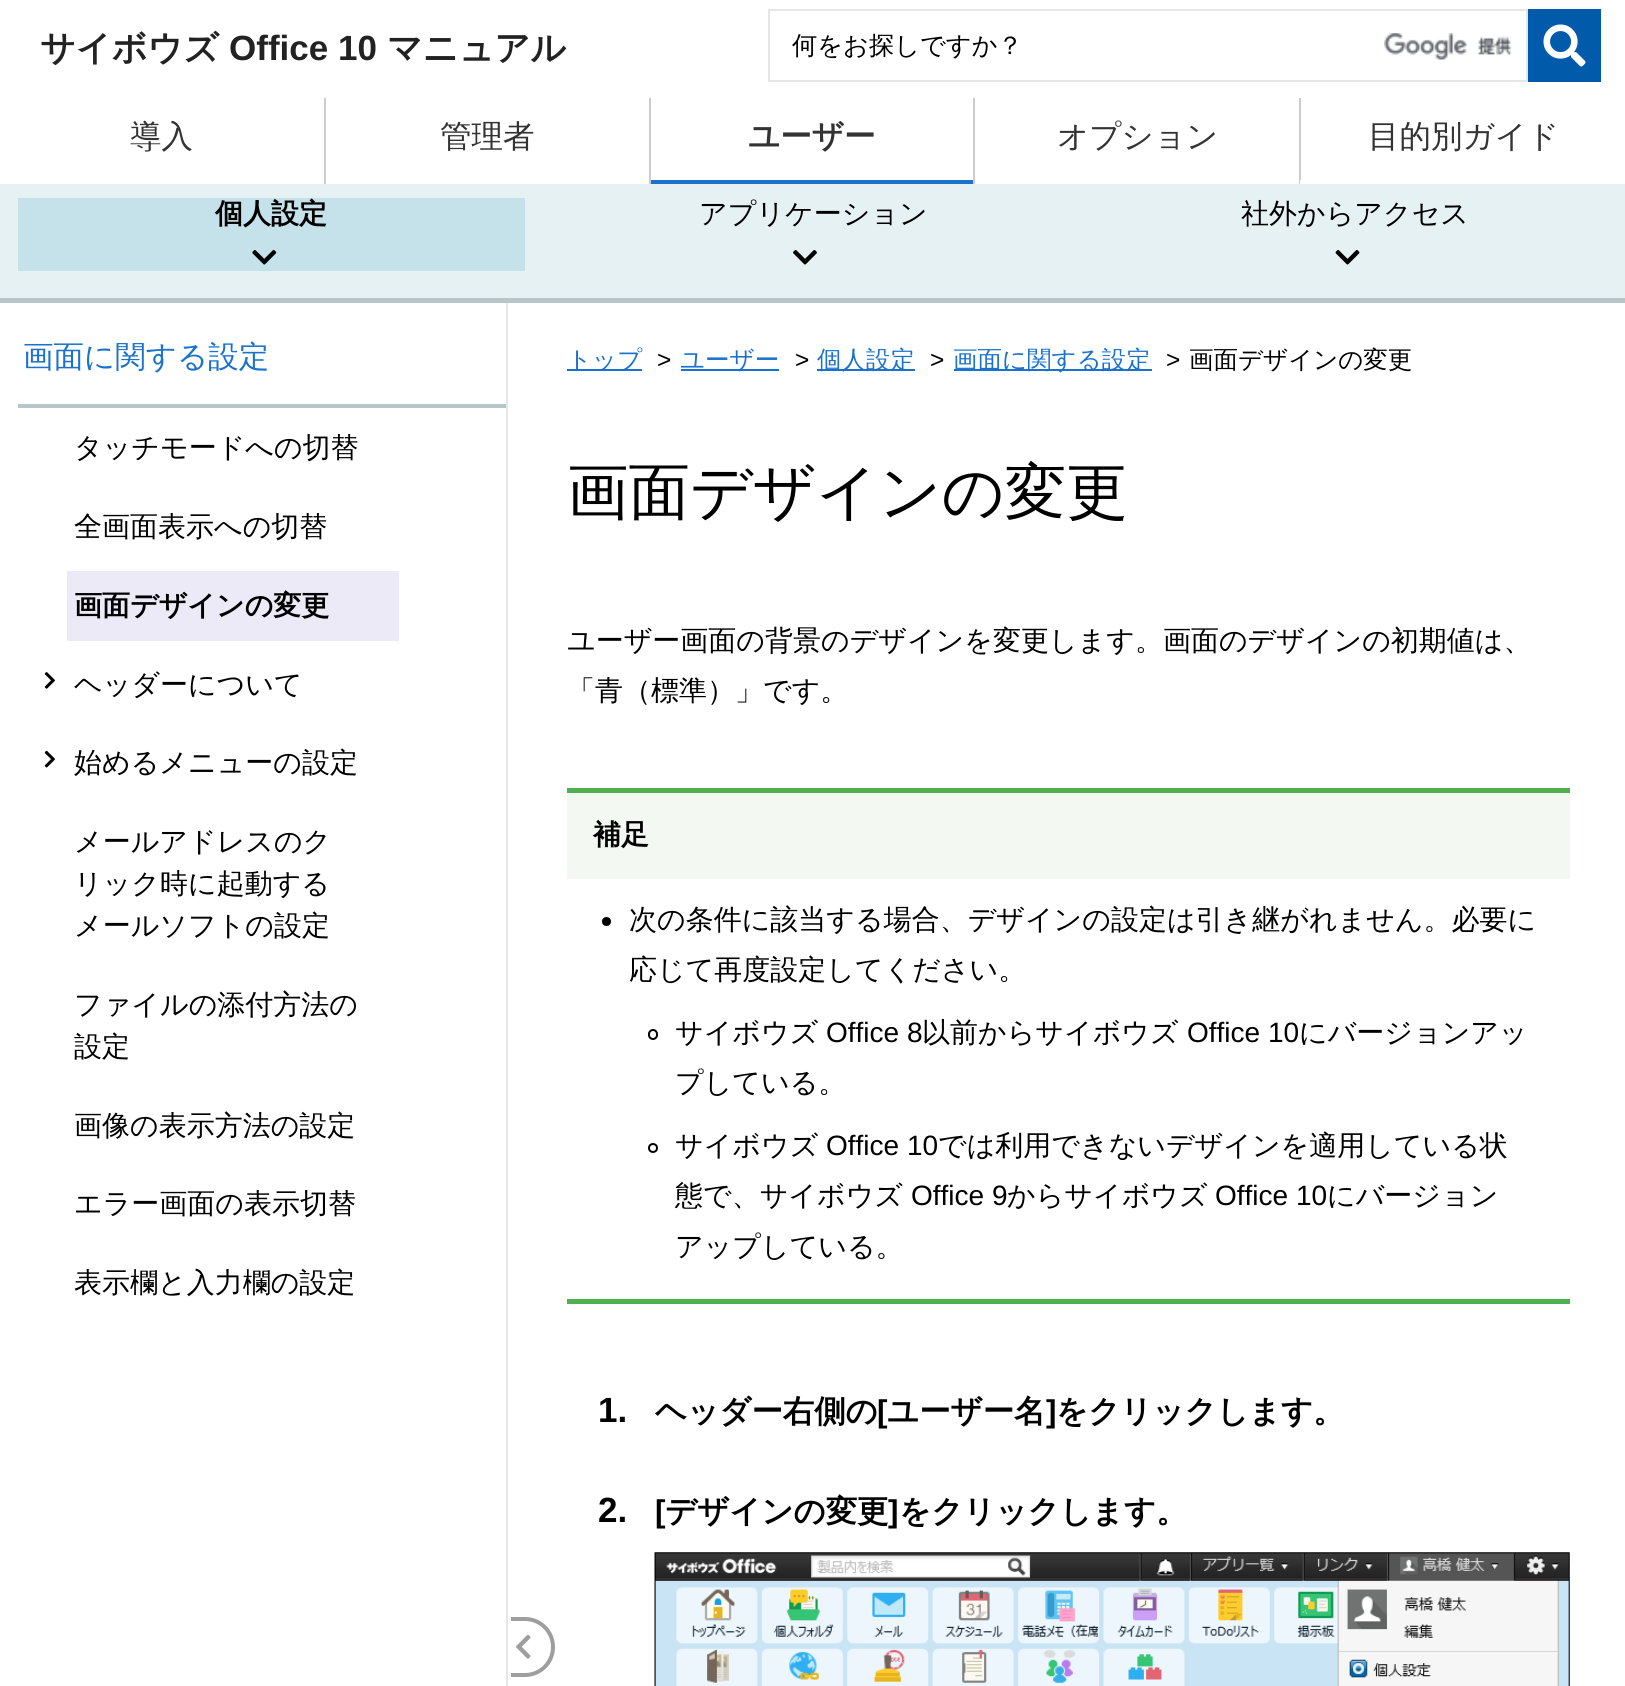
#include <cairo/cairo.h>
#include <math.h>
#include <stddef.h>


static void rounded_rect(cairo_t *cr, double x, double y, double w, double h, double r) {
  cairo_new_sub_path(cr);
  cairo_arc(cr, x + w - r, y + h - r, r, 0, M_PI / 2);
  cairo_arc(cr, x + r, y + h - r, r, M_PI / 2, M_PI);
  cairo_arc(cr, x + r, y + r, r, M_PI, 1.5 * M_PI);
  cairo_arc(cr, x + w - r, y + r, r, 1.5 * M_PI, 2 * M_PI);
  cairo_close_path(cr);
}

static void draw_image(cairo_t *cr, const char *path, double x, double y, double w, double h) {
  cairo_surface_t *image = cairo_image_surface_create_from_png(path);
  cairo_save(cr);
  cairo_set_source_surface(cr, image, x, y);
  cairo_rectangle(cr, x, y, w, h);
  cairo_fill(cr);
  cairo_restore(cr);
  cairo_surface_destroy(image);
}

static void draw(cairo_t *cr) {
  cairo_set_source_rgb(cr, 1, 1, 1);
  cairo_paint(cr);
  draw_image(cr, "images/1.png", 1384, 33, 128, 27);
  cairo_rectangle(cr, 769, 10, 758, 71);
  cairo_set_source_rgb(cr, 230 / 255.0, 230 / 255.0, 230 / 255.0);
  cairo_stroke(cr);
  cairo_set_source_rgb(cr, 1 / 255.0, 90 / 255.0, 170 / 255.0);
  cairo_rectangle(cr, 1528, 9, 73, 73);
  cairo_fill(cr);
  draw_image(cr, "images/2.png", 1543, 24, 43, 43);
  cairo_set_source_rgb(cr, 204 / 255.0, 204 / 255.0, 204 / 255.0);
  cairo_rectangle(cr, 324, 95, 2, 89);
  cairo_fill(cr);
  cairo_set_source_rgb(cr, 250 / 255.0, 250 / 255.0, 250 / 255.0);
  cairo_rectangle(cr, 324, 95, 2, 3);
  cairo_fill(cr);
  cairo_set_source_rgb(cr, 204 / 255.0, 204 / 255.0, 204 / 255.0);
  cairo_rectangle(cr, 649, 95, 2, 89);
  cairo_fill(cr);
  cairo_set_source_rgb(cr, 250 / 255.0, 250 / 255.0, 250 / 255.0);
  cairo_rectangle(cr, 649, 95, 2, 3);
  cairo_fill(cr);
  cairo_set_source_rgb(cr, 204 / 255.0, 204 / 255.0, 204 / 255.0);
  cairo_rectangle(cr, 973, 95, 2, 89);
  cairo_fill(cr);
  cairo_set_source_rgb(cr, 250 / 255.0, 250 / 255.0, 250 / 255.0);
  cairo_rectangle(cr, 973, 95, 2, 3);
  cairo_fill(cr);
  cairo_set_source_rgb(cr, 27 / 255.0, 114 / 255.0, 205 / 255.0);
  cairo_rectangle(cr, 651, 180, 322, 4);
  cairo_fill(cr);
  cairo_set_source_rgb(cr, 204 / 255.0, 204 / 255.0, 204 / 255.0);
  cairo_rectangle(cr, 1299, 95, 2, 89);
  cairo_fill(cr);
  cairo_set_source_rgb(cr, 250 / 255.0, 250 / 255.0, 250 / 255.0);
  cairo_rectangle(cr, 1299, 95, 2, 3);
  cairo_fill(cr);
  cairo_set_source_rgb(cr, 1, 1, 1);
  cairo_rectangle(cr, 1300, 180, 1, 4);
  cairo_fill(cr);
  cairo_set_source_rgb(cr, 230 / 255.0, 241 / 255.0, 244 / 255.0);
  cairo_rectangle(cr, 0, 184, 1625, 114);
  cairo_fill(cr);
  cairo_set_source_rgb(cr, 184 / 255.0, 197 / 255.0, 202 / 255.0);
  cairo_rectangle(cr, 0, 298, 1625, 5);
  cairo_fill(cr);
  cairo_set_source_rgb(cr, 197 / 255.0, 225 / 255.0, 233 / 255.0);
  cairo_rectangle(cr, 18, 198, 507, 73);
  cairo_fill(cr);
  draw_image(cr, "images/3.png", 252, 250, 25, 15);
  draw_image(cr, "images/4.png", 793, 250, 24, 15);
  draw_image(cr, "images/5.png", 1335, 250, 25, 15);
  cairo_new_path(cr);
  cairo_move_to(cr, 497, 1619);
  cairo_line_to(cr, 525, 1619);
  cairo_curve_to(cr, 540.5, 1619, 553, 1631.5, 553, 1647);
  cairo_curve_to(cr, 553, 1662.5, 540.5, 1675, 525, 1675);
  cairo_line_to(cr, 497, 1675);
  cairo_close_path(cr);
  cairo_set_source_rgb(cr, 158 / 255.0, 158 / 255.0, 158 / 255.0);
  cairo_set_line_width(cr, 4);
  cairo_stroke(cr);
  cairo_set_source_rgb(cr, 1, 1, 1);
  cairo_rectangle(cr, 495, 1617, 16, 60);
  cairo_fill(cr);
  cairo_set_source_rgb(cr, 230 / 255.0, 230 / 255.0, 230 / 255.0);
  cairo_rectangle(cr, 506, 303, 2, 1383);
  cairo_fill(cr);
  cairo_set_source_rgb(cr, 184 / 255.0, 197 / 255.0, 202 / 255.0);
  cairo_rectangle(cr, 18, 404, 488, 4);
  cairo_fill(cr);
  cairo_set_source_rgb(cr, 236 / 255.0, 234 / 255.0, 247 / 255.0);
  cairo_rectangle(cr, 67, 571, 332, 70);
  cairo_fill(cr);
  draw_image(cr, "images/6.png", 44, 672, 11, 17);
  draw_image(cr, "images/7.png", 44, 750, 11, 18);
  cairo_set_source_rgb(cr, 27 / 255.0, 114 / 255.0, 205 / 255.0);
  cairo_rectangle(cr, 567, 369, 75, 2);
  cairo_fill(cr);
  cairo_rectangle(cr, 681, 369, 98, 2);
  cairo_fill(cr);
  cairo_rectangle(cr, 817, 369, 98, 2);
  cairo_fill(cr);
  cairo_rectangle(cr, 954, 369, 198, 2);
  cairo_fill(cr);
  cairo_set_source_rgb(cr, 80 / 255.0, 175 / 255.0, 81 / 255.0);
  cairo_rectangle(cr, 567, 788, 1003, 5);
  cairo_fill(cr);
  cairo_rectangle(cr, 567, 1299, 1003, 5);
  cairo_fill(cr);
  cairo_set_source_rgb(cr, 243 / 255.0, 248 / 255.0, 243 / 255.0);
  cairo_rectangle(cr, 567, 793, 1003, 86);
  cairo_fill(cr);
  cairo_set_source_rgb(cr, 0, 0, 0);
  cairo_arc(cr, 606.5, 921.5, 4.5, 0, 2 * M_PI);
  cairo_fill(cr);
  rounded_rect(cr, 649, 1030, 8, 9, 4);
  cairo_set_line_width(cr, 2);
  cairo_stroke(cr);
  cairo_arc(cr, 653, 1148, 4, 0, 2 * M_PI);
  cairo_stroke(cr);
  draw_image(cr, "images/8.png", 654, 1552, 916, 134);
  draw_image(cr, "images/9.png", 516, 1634, 15, 25);
  cairo_select_font_face(cr, "WenQuanYi Zen Hei", CAIRO_FONT_SLANT_NORMAL, CAIRO_FONT_WEIGHT_BOLD);
  cairo_set_font_size(cr, 35);
  cairo_set_source_rgb(cr, 34 / 255.0, 34 / 255.0, 34 / 255.0);
  cairo_move_to(cr, 40, 60);
  cairo_show_text(cr, "サイボウズ");
  cairo_select_font_face(cr, "Liberation Sans", CAIRO_FONT_SLANT_NORMAL, CAIRO_FONT_WEIGHT_BOLD);
  cairo_move_to(cr, 229, 60);
  cairo_show_text(cr, "Office 10");
  cairo_select_font_face(cr, "WenQuanYi Zen Hei", CAIRO_FONT_SLANT_NORMAL, CAIRO_FONT_WEIGHT_BOLD);
  cairo_move_to(cr, 387, 60);
  cairo_show_text(cr, "マニュアル");
  cairo_select_font_face(cr, "WenQuanYi Zen Hei Medium", CAIRO_FONT_SLANT_NORMAL, CAIRO_FONT_WEIGHT_NORMAL);
  cairo_set_font_size(cr, 25.25);
  cairo_set_source_rgb(cr, 0, 0, 0);
  cairo_move_to(cr, 792, 54);
  cairo_show_text(cr, "何をお探しですか？");
  cairo_set_font_size(cr, 31.5);
  cairo_set_source_rgb(cr, 51 / 255.0, 51 / 255.0, 51 / 255.0);
  cairo_move_to(cr, 130, 147);
  cairo_show_text(cr, "導入");
  cairo_move_to(cr, 440, 147);
  cairo_show_text(cr, "管理者");
  cairo_select_font_face(cr, "WenQuanYi Zen Hei", CAIRO_FONT_SLANT_NORMAL, CAIRO_FONT_WEIGHT_BOLD);
  cairo_move_to(cr, 748, 147);
  cairo_show_text(cr, "ユーザー");
  cairo_select_font_face(cr, "WenQuanYi Zen Hei Medium", CAIRO_FONT_SLANT_NORMAL, CAIRO_FONT_WEIGHT_NORMAL);
  cairo_move_to(cr, 1057, 147);
  cairo_show_text(cr, "オプション");
  cairo_move_to(cr, 1368, 147);
  cairo_show_text(cr, "目的別ガイド");
  cairo_select_font_face(cr, "WenQuanYi Zen Hei", CAIRO_FONT_SLANT_NORMAL, CAIRO_FONT_WEIGHT_BOLD);
  cairo_set_font_size(cr, 28);
  cairo_set_source_rgb(cr, 0, 0, 0);
  cairo_move_to(cr, 215, 223);
  cairo_show_text(cr, "個人設定");
  cairo_select_font_face(cr, "WenQuanYi Zen Hei Medium", CAIRO_FONT_SLANT_NORMAL, CAIRO_FONT_WEIGHT_NORMAL);
  cairo_move_to(cr, 699, 223);
  cairo_show_text(cr, "アプリケーション");
  cairo_move_to(cr, 1241, 223);
  cairo_show_text(cr, "社外からアクセス");
  cairo_set_font_size(cr, 30.5);
  cairo_set_source_rgb(cr, 27 / 255.0, 114 / 255.0, 205 / 255.0);
  cairo_move_to(cr, 23, 367);
  cairo_show_text(cr, "画面に関する設定");
  cairo_set_font_size(cr, 28);
  cairo_set_source_rgb(cr, 0, 0, 0);
  cairo_move_to(cr, 74, 457);
  cairo_show_text(cr, "タッチモードへの切替");
  cairo_move_to(cr, 74, 536);
  cairo_show_text(cr, "全画面表示への切替");
  cairo_select_font_face(cr, "WenQuanYi Zen Hei", CAIRO_FONT_SLANT_NORMAL, CAIRO_FONT_WEIGHT_BOLD);
  cairo_move_to(cr, 74, 615);
  cairo_show_text(cr, "画面デザインの変更");
  cairo_select_font_face(cr, "WenQuanYi Zen Hei Medium", CAIRO_FONT_SLANT_NORMAL, CAIRO_FONT_WEIGHT_NORMAL);
  cairo_move_to(cr, 74, 694);
  cairo_show_text(cr, "ヘッダーについて");
  cairo_move_to(cr, 74, 772);
  cairo_show_text(cr, "始めるメニューの設定");
  cairo_move_to(cr, 74, 851);
  cairo_show_text(cr, "メールアドレスのク");
  cairo_move_to(cr, 74, 893);
  cairo_show_text(cr, "リック時に起動する");
  cairo_move_to(cr, 74, 935);
  cairo_show_text(cr, "メールソフトの設定");
  cairo_move_to(cr, 74, 1014);
  cairo_show_text(cr, "ファイルの添付方法の");
  cairo_move_to(cr, 74, 1056);
  cairo_show_text(cr, "設定");
  cairo_move_to(cr, 74, 1135);
  cairo_show_text(cr, "画像の表示方法の設定");
  cairo_move_to(cr, 74, 1213);
  cairo_show_text(cr, "エラー画面の表示切替");
  cairo_move_to(cr, 74, 1292);
  cairo_show_text(cr, "表示欄と入力欄の設定");
  cairo_set_font_size(cr, 24.5);
  cairo_set_source_rgb(cr, 27 / 255.0, 114 / 255.0, 205 / 255.0);
  cairo_move_to(cr, 567, 368);
  cairo_show_text(cr, "トップ");
  cairo_select_font_face(cr, "Liberation Sans", CAIRO_FONT_SLANT_NORMAL, CAIRO_FONT_WEIGHT_NORMAL);
  cairo_set_source_rgb(cr, 0, 0, 0);
  cairo_move_to(cr, 657, 368);
  cairo_show_text(cr, ">");
  cairo_select_font_face(cr, "WenQuanYi Zen Hei Medium", CAIRO_FONT_SLANT_NORMAL, CAIRO_FONT_WEIGHT_NORMAL);
  cairo_set_source_rgb(cr, 27 / 255.0, 114 / 255.0, 205 / 255.0);
  cairo_move_to(cr, 680, 368);
  cairo_show_text(cr, "ユーザー");
  cairo_select_font_face(cr, "Liberation Sans", CAIRO_FONT_SLANT_NORMAL, CAIRO_FONT_WEIGHT_NORMAL);
  cairo_set_source_rgb(cr, 0, 0, 0);
  cairo_move_to(cr, 795, 368);
  cairo_show_text(cr, ">");
  cairo_select_font_face(cr, "WenQuanYi Zen Hei Medium", CAIRO_FONT_SLANT_NORMAL, CAIRO_FONT_WEIGHT_NORMAL);
  cairo_set_source_rgb(cr, 27 / 255.0, 114 / 255.0, 205 / 255.0);
  cairo_move_to(cr, 817, 368);
  cairo_show_text(cr, "個人設定");
  cairo_select_font_face(cr, "Liberation Sans", CAIRO_FONT_SLANT_NORMAL, CAIRO_FONT_WEIGHT_NORMAL);
  cairo_set_source_rgb(cr, 0, 0, 0);
  cairo_move_to(cr, 930, 368);
  cairo_show_text(cr, ">");
  cairo_select_font_face(cr, "WenQuanYi Zen Hei Medium", CAIRO_FONT_SLANT_NORMAL, CAIRO_FONT_WEIGHT_NORMAL);
  cairo_set_source_rgb(cr, 27 / 255.0, 114 / 255.0, 205 / 255.0);
  cairo_move_to(cr, 953, 368);
  cairo_show_text(cr, "画面に関する設定");
  cairo_select_font_face(cr, "Liberation Sans", CAIRO_FONT_SLANT_NORMAL, CAIRO_FONT_WEIGHT_NORMAL);
  cairo_set_source_rgb(cr, 0, 0, 0);
  cairo_move_to(cr, 1166, 368);
  cairo_show_text(cr, ">");
  cairo_select_font_face(cr, "WenQuanYi Zen Hei Medium", CAIRO_FONT_SLANT_NORMAL, CAIRO_FONT_WEIGHT_NORMAL);
  cairo_move_to(cr, 1189, 368);
  cairo_show_text(cr, "画面デザインの変更");
  cairo_set_font_size(cr, 61.5);
  cairo_move_to(cr, 567, 513);
  cairo_show_text(cr, "画面デザインの変更");
  cairo_set_font_size(cr, 28);
  cairo_move_to(cr, 567, 650);
  cairo_show_text(cr, "ユーザー画面の背景のデザインを変更します。画面のデザインの初期値は、");
  cairo_move_to(cr, 567, 700);
  cairo_show_text(cr, "「青（標準）」です。");
  cairo_select_font_face(cr, "WenQuanYi Zen Hei", CAIRO_FONT_SLANT_NORMAL, CAIRO_FONT_WEIGHT_BOLD);
  cairo_move_to(cr, 593, 844);
  cairo_show_text(cr, "補足");
  cairo_select_font_face(cr, "WenQuanYi Zen Hei Medium", CAIRO_FONT_SLANT_NORMAL, CAIRO_FONT_WEIGHT_NORMAL);
  cairo_move_to(cr, 629, 929);
  cairo_show_text(cr, "次の条件に該当する場合、デザインの設定は引き継がれません。必要に");
  cairo_move_to(cr, 629, 979);
  cairo_show_text(cr, "応じて再度設定してください。");
  cairo_move_to(cr, 675, 1042);
  cairo_show_text(cr, "サイボウズ");
  cairo_select_font_face(cr, "Liberation Sans", CAIRO_FONT_SLANT_NORMAL, CAIRO_FONT_WEIGHT_NORMAL);
  cairo_move_to(cr, 826, 1042);
  cairo_show_text(cr, "Office 8");
  cairo_select_font_face(cr, "WenQuanYi Zen Hei Medium", CAIRO_FONT_SLANT_NORMAL, CAIRO_FONT_WEIGHT_NORMAL);
  cairo_move_to(cr, 922, 1042);
  cairo_show_text(cr, "以前からサイボウズ");
  cairo_select_font_face(cr, "Liberation Sans", CAIRO_FONT_SLANT_NORMAL, CAIRO_FONT_WEIGHT_NORMAL);
  cairo_move_to(cr, 1187, 1042);
  cairo_show_text(cr, "Office 10");
  cairo_select_font_face(cr, "WenQuanYi Zen Hei Medium", CAIRO_FONT_SLANT_NORMAL, CAIRO_FONT_WEIGHT_NORMAL);
  cairo_move_to(cr, 1299, 1042);
  cairo_show_text(cr, "にバージョンアッ");
  cairo_move_to(cr, 675, 1092);
  cairo_show_text(cr, "プしている。");
  cairo_move_to(cr, 675, 1155);
  cairo_show_text(cr, "サイボウズ");
  cairo_select_font_face(cr, "Liberation Sans", CAIRO_FONT_SLANT_NORMAL, CAIRO_FONT_WEIGHT_NORMAL);
  cairo_move_to(cr, 826, 1155);
  cairo_show_text(cr, "Office 10");
  cairo_select_font_face(cr, "WenQuanYi Zen Hei Medium", CAIRO_FONT_SLANT_NORMAL, CAIRO_FONT_WEIGHT_NORMAL);
  cairo_move_to(cr, 938, 1155);
  cairo_show_text(cr, "では利用できないデザインを適用している状");
  cairo_move_to(cr, 675, 1205);
  cairo_show_text(cr, "態で、サイボウズ");
  cairo_select_font_face(cr, "Liberation Sans", CAIRO_FONT_SLANT_NORMAL, CAIRO_FONT_WEIGHT_NORMAL);
  cairo_move_to(cr, 911, 1205);
  cairo_show_text(cr, "Office 9");
  cairo_select_font_face(cr, "WenQuanYi Zen Hei Medium", CAIRO_FONT_SLANT_NORMAL, CAIRO_FONT_WEIGHT_NORMAL);
  cairo_move_to(cr, 1007, 1205);
  cairo_show_text(cr, "からサイボウズ");
  cairo_select_font_face(cr, "Liberation Sans", CAIRO_FONT_SLANT_NORMAL, CAIRO_FONT_WEIGHT_NORMAL);
  cairo_move_to(cr, 1215, 1205);
  cairo_show_text(cr, "Office 10");
  cairo_select_font_face(cr, "WenQuanYi Zen Hei Medium", CAIRO_FONT_SLANT_NORMAL, CAIRO_FONT_WEIGHT_NORMAL);
  cairo_move_to(cr, 1327, 1205);
  cairo_show_text(cr, "にバージョン");
  cairo_move_to(cr, 675, 1256);
  cairo_show_text(cr, "アップしている。");
  cairo_select_font_face(cr, "Liberation Sans", CAIRO_FONT_SLANT_NORMAL, CAIRO_FONT_WEIGHT_BOLD);
  cairo_set_font_size(cr, 35);
  cairo_move_to(cr, 598, 1422);
  cairo_show_text(cr, "1.");
  cairo_select_font_face(cr, "WenQuanYi Zen Hei", CAIRO_FONT_SLANT_NORMAL, CAIRO_FONT_WEIGHT_BOLD);
  cairo_set_font_size(cr, 31.4);
  cairo_move_to(cr, 655, 1422);
  cairo_show_text(cr, "ヘッダー右側の");
  cairo_select_font_face(cr, "Liberation Sans", CAIRO_FONT_SLANT_NORMAL, CAIRO_FONT_WEIGHT_BOLD);
  cairo_move_to(cr, 877, 1422);
  cairo_show_text(cr, "[");
  cairo_select_font_face(cr, "WenQuanYi Zen Hei", CAIRO_FONT_SLANT_NORMAL, CAIRO_FONT_WEIGHT_BOLD);
  cairo_move_to(cr, 887, 1422);
  cairo_show_text(cr, "ユーザー名");
  cairo_select_font_face(cr, "Liberation Sans", CAIRO_FONT_SLANT_NORMAL, CAIRO_FONT_WEIGHT_BOLD);
  cairo_move_to(cr, 1046, 1422);
  cairo_show_text(cr, "]");
  cairo_select_font_face(cr, "WenQuanYi Zen Hei", CAIRO_FONT_SLANT_NORMAL, CAIRO_FONT_WEIGHT_BOLD);
  cairo_move_to(cr, 1056, 1422);
  cairo_show_text(cr, "をクリックします。");
  cairo_select_font_face(cr, "Liberation Sans", CAIRO_FONT_SLANT_NORMAL, CAIRO_FONT_WEIGHT_BOLD);
  cairo_set_font_size(cr, 35);
  cairo_move_to(cr, 598, 1522);
  cairo_show_text(cr, "2.");
  cairo_set_font_size(cr, 31.4);
  cairo_move_to(cr, 655, 1522);
  cairo_show_text(cr, "[");
  cairo_select_font_face(cr, "WenQuanYi Zen Hei", CAIRO_FONT_SLANT_NORMAL, CAIRO_FONT_WEIGHT_BOLD);
  cairo_move_to(cr, 665, 1522);
  cairo_show_text(cr, "デザインの変更");
  cairo_select_font_face(cr, "Liberation Sans", CAIRO_FONT_SLANT_NORMAL, CAIRO_FONT_WEIGHT_BOLD);
  cairo_move_to(cr, 888, 1522);
  cairo_show_text(cr, "]");
  cairo_select_font_face(cr, "WenQuanYi Zen Hei", CAIRO_FONT_SLANT_NORMAL, CAIRO_FONT_WEIGHT_BOLD);
  cairo_move_to(cr, 899, 1522);
  cairo_show_text(cr, "をクリックします。");
}

int main(void) {
  cairo_surface_t *surface = cairo_image_surface_create(CAIRO_FORMAT_RGB24, 1625, 1686);
  cairo_t *cr = cairo_create(surface);
  cairo_font_options_t *options = cairo_font_options_create();
  cairo_font_options_set_hint_metrics(options, CAIRO_HINT_METRICS_OFF);
  cairo_font_options_set_hint_style(options, CAIRO_HINT_STYLE_NONE);
  cairo_set_font_options(cr, options);
  cairo_set_miter_limit(cr, 4);
  draw(cr);
  cairo_surface_write_to_png(surface, "out.png");
  cairo_font_options_destroy(options);
  cairo_destroy(cr);
  cairo_surface_destroy(surface);
  return 0;
}
